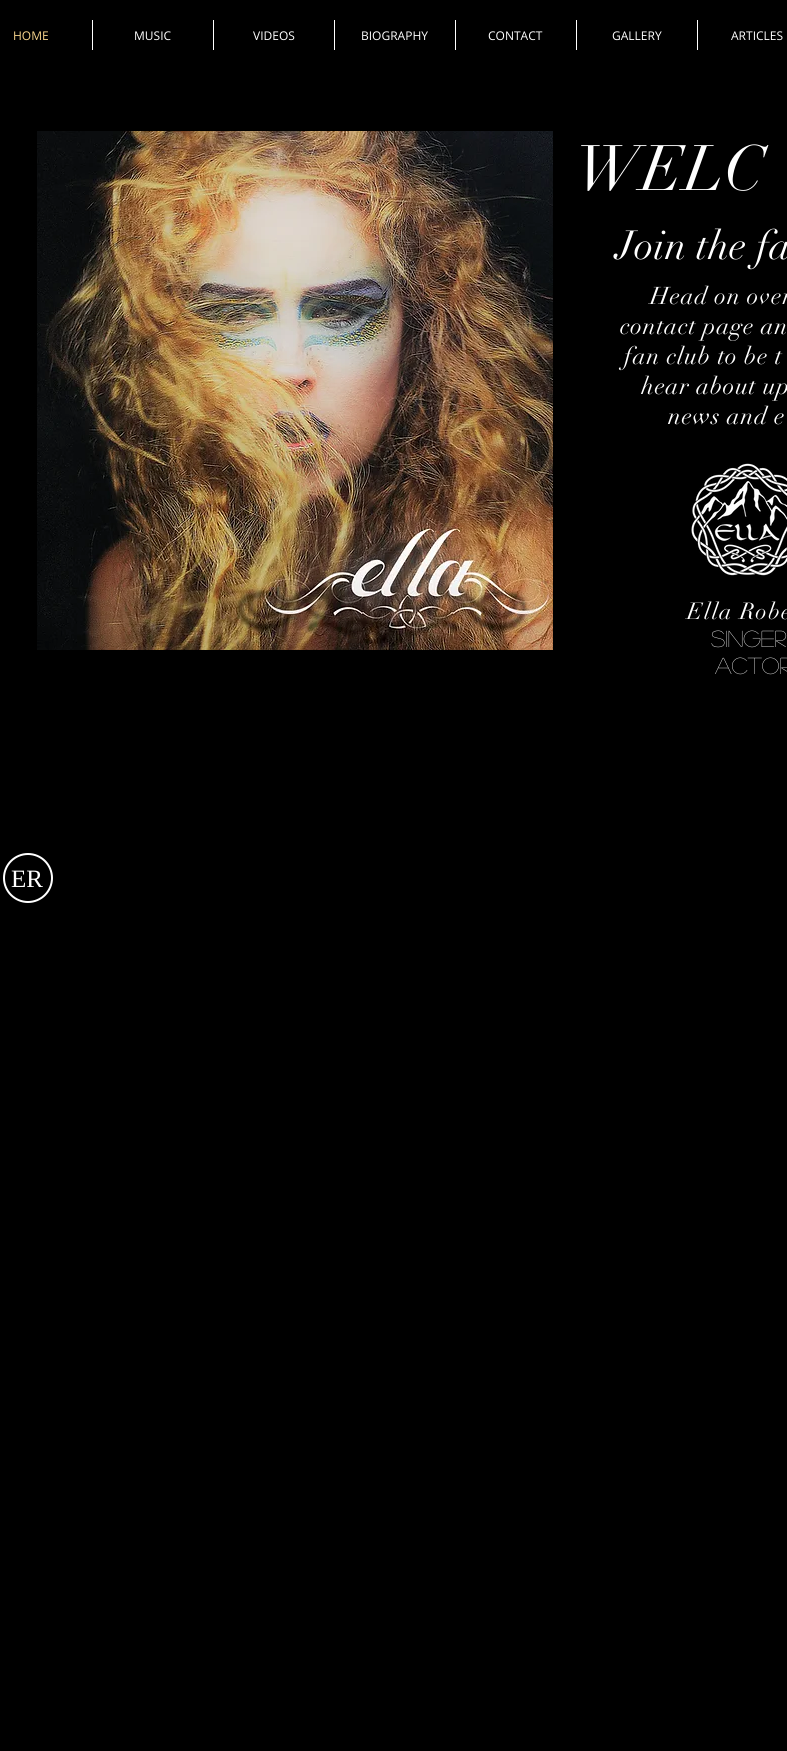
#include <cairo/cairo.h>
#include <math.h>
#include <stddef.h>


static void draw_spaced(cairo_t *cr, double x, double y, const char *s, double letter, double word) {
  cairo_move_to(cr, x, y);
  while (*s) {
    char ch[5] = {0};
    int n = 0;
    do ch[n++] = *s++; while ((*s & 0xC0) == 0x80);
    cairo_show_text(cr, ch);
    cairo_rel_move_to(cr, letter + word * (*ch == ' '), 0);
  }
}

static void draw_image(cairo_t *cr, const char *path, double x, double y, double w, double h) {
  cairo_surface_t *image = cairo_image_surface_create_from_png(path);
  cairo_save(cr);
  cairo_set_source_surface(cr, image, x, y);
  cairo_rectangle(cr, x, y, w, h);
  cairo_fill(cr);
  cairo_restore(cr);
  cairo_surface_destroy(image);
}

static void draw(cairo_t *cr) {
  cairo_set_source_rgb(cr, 0, 0, 0);
  cairo_paint(cr);
  cairo_set_source_rgb(cr, 1, 1, 1);
  cairo_rectangle(cr, 92, 20, 1, 30);
  cairo_fill(cr);
  cairo_rectangle(cr, 213, 20, 1, 30);
  cairo_fill(cr);
  cairo_rectangle(cr, 334, 20, 1, 30);
  cairo_fill(cr);
  cairo_rectangle(cr, 455, 20, 1, 30);
  cairo_fill(cr);
  cairo_rectangle(cr, 576, 20, 1, 30);
  cairo_fill(cr);
  cairo_rectangle(cr, 697, 20, 1, 30);
  cairo_fill(cr);
  draw_image(cr, "images/1.png", 37, 131, 516, 519);
  draw_image(cr, "images/2.png", 691, 463, 96, 113);
  cairo_arc(cr, 28, 878, 24, 0, 2 * M_PI);
  cairo_stroke(cr);
  cairo_select_font_face(cr, "Open Sans", CAIRO_FONT_SLANT_NORMAL, CAIRO_FONT_WEIGHT_NORMAL);
  cairo_set_font_size(cr, 12);
  cairo_set_source_rgb(cr, 246 / 255.0, 212 / 255.0, 140 / 255.0);
  cairo_move_to(cr, 13, 40);
  cairo_show_text(cr, "HOME");
  cairo_set_source_rgb(cr, 1, 1, 1);
  cairo_move_to(cr, 134, 40);
  cairo_show_text(cr, "MUSIC");
  cairo_move_to(cr, 253, 40);
  cairo_show_text(cr, "VIDEOS");
  cairo_move_to(cr, 361, 40);
  cairo_show_text(cr, "BIOGRAPHY");
  cairo_move_to(cr, 488, 40);
  cairo_show_text(cr, "CONTACT");
  cairo_move_to(cr, 612, 40);
  cairo_show_text(cr, "GALLERY");
  cairo_move_to(cr, 731, 40);
  cairo_show_text(cr, "ARTICLES");
  cairo_select_font_face(cr, "didot", CAIRO_FONT_SLANT_NORMAL, CAIRO_FONT_WEIGHT_NORMAL);
  cairo_set_font_size(cr, 63);
  cairo_move_to(cr, 576, 190);
  cairo_show_text(cr, "WELC");
  cairo_set_font_size(cr, 40);
  cairo_move_to(cr, 616, 259);
  cairo_show_text(cr, "Join the fa");
  cairo_set_font_size(cr, 24);
  draw_spaced(cr, 650, 304, "Head on over", 0.75, 0);
  draw_spaced(cr, 620, 334, "contact page an", 0.75, 0);
  draw_spaced(cr, 624, 364, "fan club to be t", 0.75, 0);
  draw_spaced(cr, 641, 394, "hear about up", 0.75, 0);
  draw_spaced(cr, 668, 424, "news and e", 0.75, 0);
  cairo_set_font_size(cr, 23);
  draw_spaced(cr, 687, 619, "Ella Robe", 1.25, 0);
  cairo_select_font_face(cr, "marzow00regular", CAIRO_FONT_SLANT_NORMAL, CAIRO_FONT_WEIGHT_NORMAL);
  cairo_move_to(cr, 711, 647);
  cairo_show_text(cr, "Singer");
  cairo_move_to(cr, 715, 674);
  cairo_show_text(cr, "Actor");
  cairo_select_font_face(cr, "Liberation Serif", CAIRO_FONT_SLANT_NORMAL, CAIRO_FONT_WEIGHT_NORMAL);
  cairo_set_font_size(cr, 25);
  cairo_move_to(cr, 11, 887);
  cairo_show_text(cr, "ER");
}

int main(void) {
  cairo_surface_t *surface = cairo_image_surface_create(CAIRO_FORMAT_RGB24, 787, 1751);
  cairo_t *cr = cairo_create(surface);
  cairo_font_options_t *options = cairo_font_options_create();
  cairo_font_options_set_hint_metrics(options, CAIRO_HINT_METRICS_OFF);
  cairo_font_options_set_hint_style(options, CAIRO_HINT_STYLE_NONE);
  cairo_set_font_options(cr, options);
  cairo_set_miter_limit(cr, 4);
  draw(cr);
  cairo_surface_write_to_png(surface, "out.png");
  cairo_font_options_destroy(options);
  cairo_destroy(cr);
  cairo_surface_destroy(surface);
  return 0;
}
